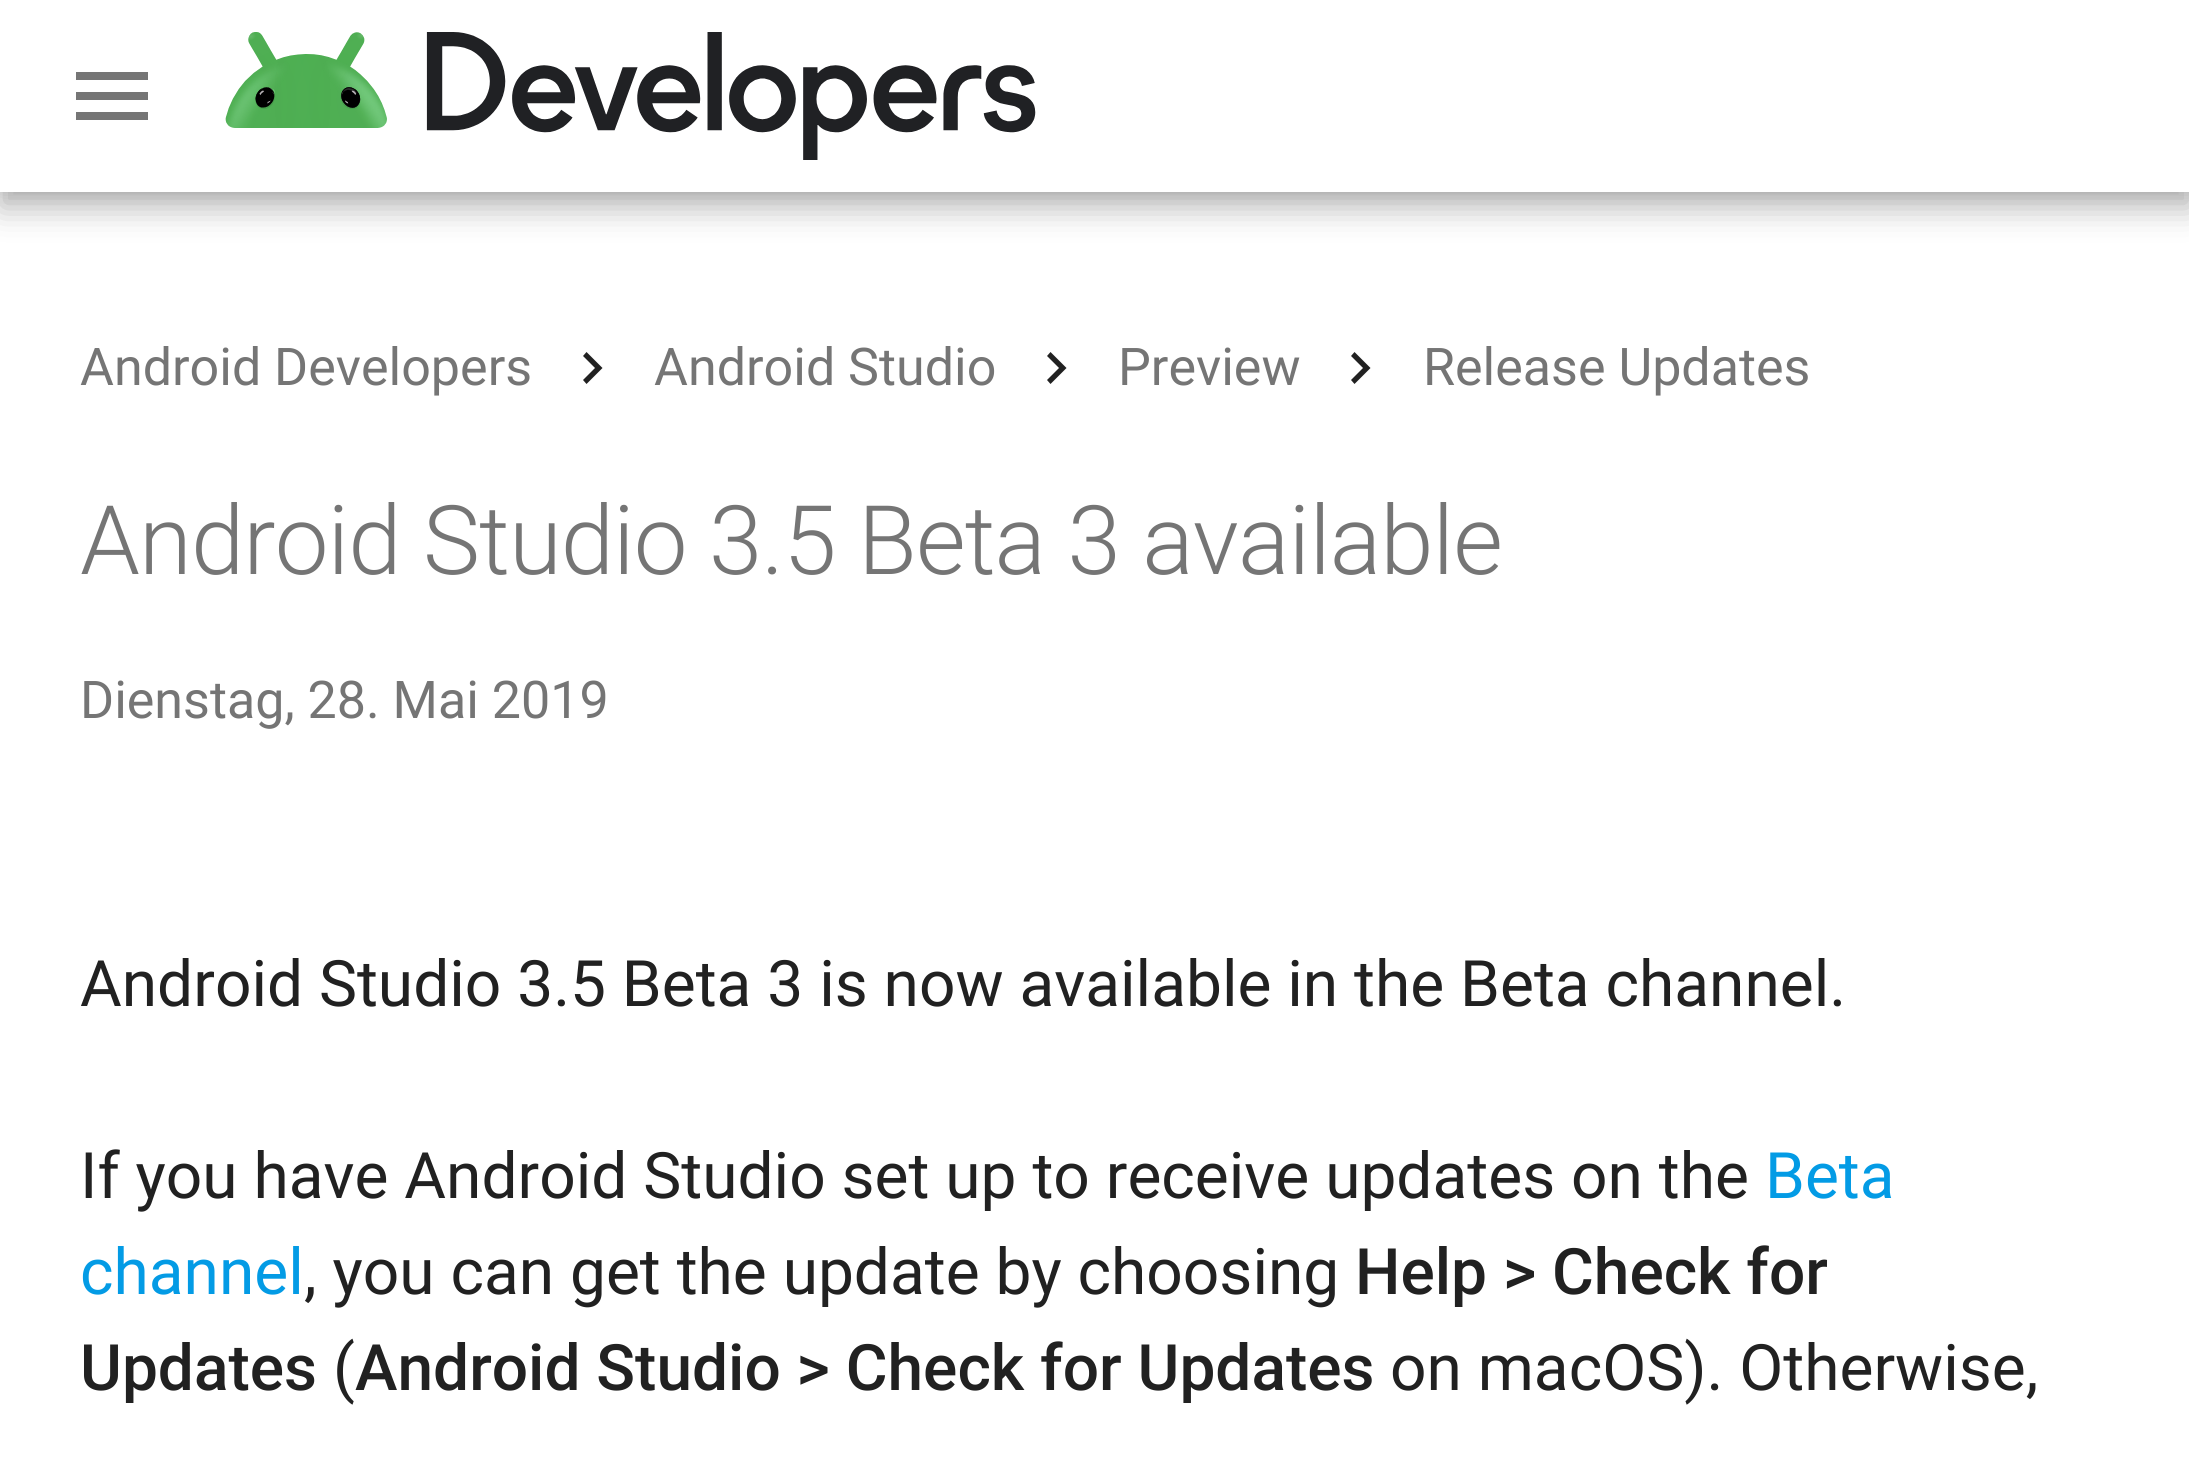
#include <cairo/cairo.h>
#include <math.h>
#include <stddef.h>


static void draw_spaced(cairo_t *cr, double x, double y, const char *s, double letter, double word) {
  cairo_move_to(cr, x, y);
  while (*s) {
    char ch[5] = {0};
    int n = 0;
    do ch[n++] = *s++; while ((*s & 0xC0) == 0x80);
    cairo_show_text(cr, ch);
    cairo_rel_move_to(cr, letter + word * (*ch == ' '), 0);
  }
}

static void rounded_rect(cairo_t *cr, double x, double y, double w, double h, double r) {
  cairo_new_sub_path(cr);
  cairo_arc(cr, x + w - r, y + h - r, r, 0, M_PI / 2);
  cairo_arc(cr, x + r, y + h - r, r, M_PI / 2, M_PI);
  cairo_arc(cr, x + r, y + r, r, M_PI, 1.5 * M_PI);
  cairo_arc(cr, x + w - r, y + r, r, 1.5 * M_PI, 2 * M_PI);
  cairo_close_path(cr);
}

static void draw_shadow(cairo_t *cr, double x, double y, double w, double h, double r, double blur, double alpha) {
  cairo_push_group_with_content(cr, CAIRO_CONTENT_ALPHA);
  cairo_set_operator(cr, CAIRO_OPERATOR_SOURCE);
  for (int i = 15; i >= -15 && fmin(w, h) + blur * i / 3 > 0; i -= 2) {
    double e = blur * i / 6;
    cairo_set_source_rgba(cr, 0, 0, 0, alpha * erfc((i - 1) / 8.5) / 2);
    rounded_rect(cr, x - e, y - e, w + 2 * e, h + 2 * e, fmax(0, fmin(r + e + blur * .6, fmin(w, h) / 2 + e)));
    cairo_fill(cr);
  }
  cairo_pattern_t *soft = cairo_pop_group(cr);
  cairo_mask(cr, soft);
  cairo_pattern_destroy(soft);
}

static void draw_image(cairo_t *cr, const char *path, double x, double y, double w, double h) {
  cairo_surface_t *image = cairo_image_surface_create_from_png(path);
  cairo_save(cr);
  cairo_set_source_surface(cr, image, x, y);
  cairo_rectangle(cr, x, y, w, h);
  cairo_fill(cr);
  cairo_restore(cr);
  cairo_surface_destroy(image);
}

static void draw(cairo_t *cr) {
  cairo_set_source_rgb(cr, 1, 1, 1);
  cairo_paint(cr);
  cairo_set_source_rgb(cr, 0, 0, 0);
  draw_shadow(cr, 0, 16, 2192, 192, 0, 16, 0.28);
  draw_shadow(cr, 0, 0, 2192, 192, 0, 8, 0.14);
  cairo_set_source_rgb(cr, 1, 1, 1);
  cairo_rectangle(cr, 0, 0, 2189, 192);
  cairo_fill(cr);
  cairo_set_source_rgb(cr, 117 / 255.0, 117 / 255.0, 117 / 255.0);
  cairo_new_path(cr);
  cairo_move_to(cr, 76, 72);
  cairo_line_to(cr, 148, 72);
  cairo_line_to(cr, 148, 80);
  cairo_line_to(cr, 76, 80);
  cairo_close_path(cr);
  cairo_move_to(cr, 76, 100);
  cairo_line_to(cr, 76, 92);
  cairo_line_to(cr, 148, 92);
  cairo_line_to(cr, 148, 100);
  cairo_close_path(cr);
  cairo_move_to(cr, 76, 120);
  cairo_line_to(cr, 76, 112);
  cairo_line_to(cr, 148, 112);
  cairo_line_to(cr, 148, 120);
  cairo_close_path(cr);
  cairo_fill(cr);
  draw_image(cr, "images/1.png", 225, 32, 811, 128);
  cairo_set_source_rgb(cr, 33 / 255.0, 33 / 255.0, 33 / 255.0);
  cairo_new_path(cr);
  cairo_move_to(cr, 586.5, 352);
  cairo_line_to(cr, 602.5, 368);
  cairo_line_to(cr, 586.5, 384);
  cairo_line_to(cr, 583, 380);
  cairo_line_to(cr, 595, 368);
  cairo_line_to(cr, 583, 356);
  cairo_close_path(cr);
  cairo_fill(cr);
  cairo_new_path(cr);
  cairo_move_to(cr, 1050.5, 352);
  cairo_line_to(cr, 1066.5, 368);
  cairo_line_to(cr, 1050.5, 384);
  cairo_line_to(cr, 1047, 380);
  cairo_line_to(cr, 1059, 368);
  cairo_line_to(cr, 1047, 356);
  cairo_close_path(cr);
  cairo_fill(cr);
  cairo_new_path(cr);
  cairo_move_to(cr, 1354.5, 352);
  cairo_line_to(cr, 1370.5, 368);
  cairo_line_to(cr, 1354.5, 384);
  cairo_line_to(cr, 1351, 380);
  cairo_line_to(cr, 1363, 368);
  cairo_line_to(cr, 1351, 356);
  cairo_close_path(cr);
  cairo_fill(cr);
  cairo_select_font_face(cr, "Roboto", CAIRO_FONT_SLANT_NORMAL, CAIRO_FONT_WEIGHT_NORMAL);
  cairo_set_font_size(cr, 52);
  cairo_set_source_rgb(cr, 117 / 255.0, 117 / 255.0, 117 / 255.0);
  cairo_move_to(cr, 80, 385);
  cairo_show_text(cr, "Android Developers");
  cairo_move_to(cr, 654, 385);
  cairo_show_text(cr, "Android Studio");
  cairo_move_to(cr, 1118, 385);
  cairo_show_text(cr, "Preview");
  cairo_move_to(cr, 1423, 385);
  cairo_show_text(cr, "Release Updates");
  cairo_select_font_face(cr, "Roboto Light", CAIRO_FONT_SLANT_NORMAL, CAIRO_FONT_WEIGHT_NORMAL);
  cairo_set_font_size(cr, 96);
  draw_spaced(cr, 80, 574, "Android Studio 3.5 Beta 3 available", -0.95, 0);
  cairo_select_font_face(cr, "Roboto", CAIRO_FONT_SLANT_NORMAL, CAIRO_FONT_WEIGHT_NORMAL);
  cairo_set_font_size(cr, 52);
  cairo_move_to(cr, 80, 718);
  cairo_show_text(cr, "Dienstag, 28. Mai 2019");
  cairo_set_font_size(cr, 64);
  cairo_set_source_rgb(cr, 33 / 255.0, 33 / 255.0, 33 / 255.0);
  cairo_move_to(cr, 80, 1006);
  cairo_show_text(cr, "Android Studio 3.5 Beta 3 is now available in the Beta channel.");
  cairo_move_to(cr, 80, 1198);
  cairo_show_text(cr, "If you have Android Studio set up to receive updates on the");
  cairo_set_source_rgb(cr, 3 / 255.0, 155 / 255.0, 229 / 255.0);
  cairo_move_to(cr, 1765, 1198);
  cairo_show_text(cr, "Beta");
  cairo_move_to(cr, 80, 1294);
  cairo_show_text(cr, "channel");
  cairo_set_source_rgb(cr, 33 / 255.0, 33 / 255.0, 33 / 255.0);
  cairo_move_to(cr, 304, 1294);
  cairo_show_text(cr, ", you can get the update by choosing");
  cairo_select_font_face(cr, "Roboto Medium", CAIRO_FONT_SLANT_NORMAL, CAIRO_FONT_WEIGHT_NORMAL);
  cairo_move_to(cr, 1355, 1294);
  cairo_show_text(cr, "Help > Check for");
  cairo_move_to(cr, 80, 1390);
  cairo_show_text(cr, "Updates");
  cairo_select_font_face(cr, "Roboto", CAIRO_FONT_SLANT_NORMAL, CAIRO_FONT_WEIGHT_NORMAL);
  cairo_move_to(cr, 333, 1390);
  cairo_show_text(cr, "(");
  cairo_select_font_face(cr, "Roboto Medium", CAIRO_FONT_SLANT_NORMAL, CAIRO_FONT_WEIGHT_NORMAL);
  cairo_move_to(cr, 355, 1390);
  cairo_show_text(cr, "Android Studio > Check for Updates");
  cairo_select_font_face(cr, "Roboto", CAIRO_FONT_SLANT_NORMAL, CAIRO_FONT_WEIGHT_NORMAL);
  cairo_move_to(cr, 1390, 1390);
  cairo_show_text(cr, "on macOS). Otherwise,");
}

int main(void) {
  cairo_surface_t *surface = cairo_image_surface_create(CAIRO_FORMAT_RGB24, 2189, 1457);
  cairo_t *cr = cairo_create(surface);
  cairo_font_options_t *options = cairo_font_options_create();
  cairo_font_options_set_hint_metrics(options, CAIRO_HINT_METRICS_OFF);
  cairo_font_options_set_hint_style(options, CAIRO_HINT_STYLE_NONE);
  cairo_set_font_options(cr, options);
  cairo_set_miter_limit(cr, 4);
  draw(cr);
  cairo_surface_write_to_png(surface, "out.png");
  cairo_font_options_destroy(options);
  cairo_destroy(cr);
  cairo_surface_destroy(surface);
  return 0;
}
